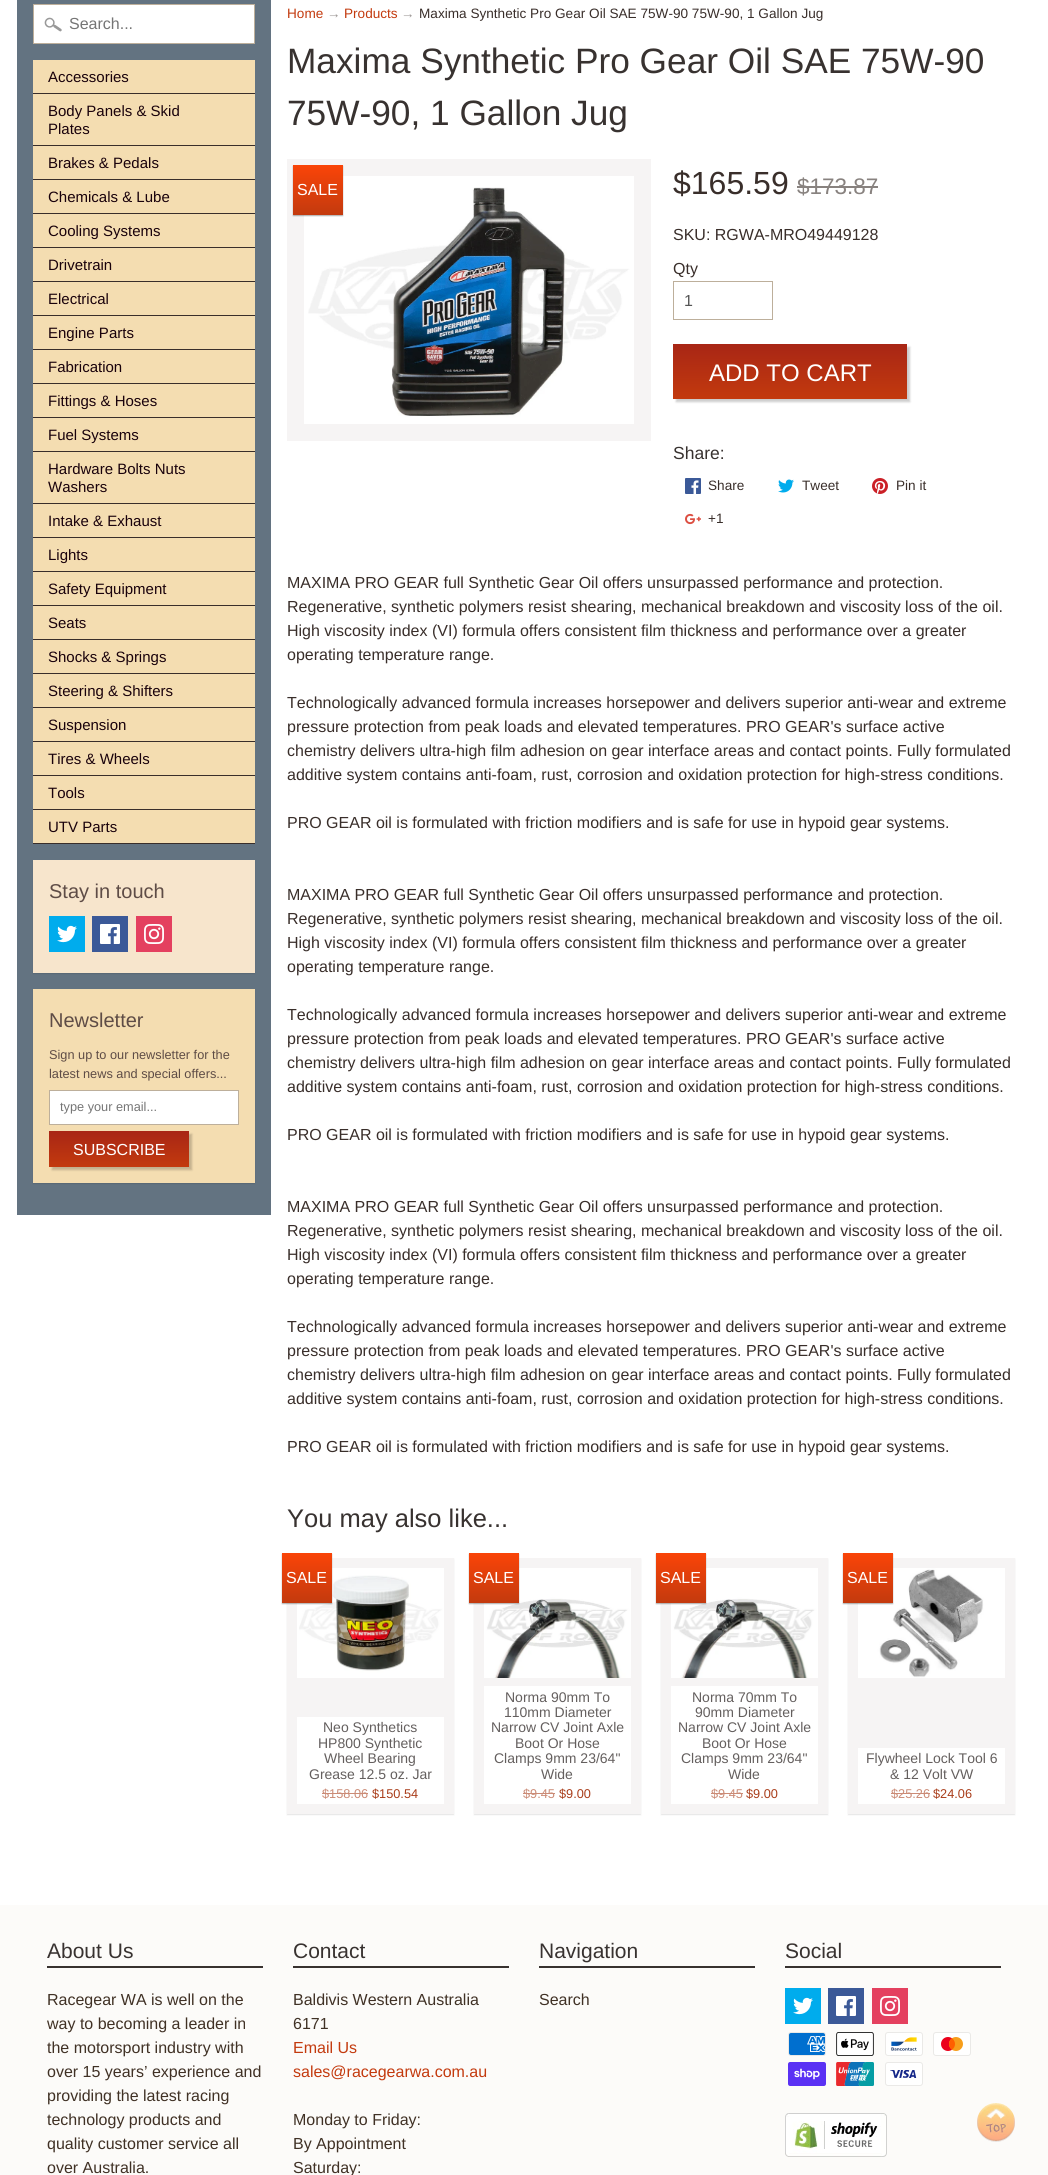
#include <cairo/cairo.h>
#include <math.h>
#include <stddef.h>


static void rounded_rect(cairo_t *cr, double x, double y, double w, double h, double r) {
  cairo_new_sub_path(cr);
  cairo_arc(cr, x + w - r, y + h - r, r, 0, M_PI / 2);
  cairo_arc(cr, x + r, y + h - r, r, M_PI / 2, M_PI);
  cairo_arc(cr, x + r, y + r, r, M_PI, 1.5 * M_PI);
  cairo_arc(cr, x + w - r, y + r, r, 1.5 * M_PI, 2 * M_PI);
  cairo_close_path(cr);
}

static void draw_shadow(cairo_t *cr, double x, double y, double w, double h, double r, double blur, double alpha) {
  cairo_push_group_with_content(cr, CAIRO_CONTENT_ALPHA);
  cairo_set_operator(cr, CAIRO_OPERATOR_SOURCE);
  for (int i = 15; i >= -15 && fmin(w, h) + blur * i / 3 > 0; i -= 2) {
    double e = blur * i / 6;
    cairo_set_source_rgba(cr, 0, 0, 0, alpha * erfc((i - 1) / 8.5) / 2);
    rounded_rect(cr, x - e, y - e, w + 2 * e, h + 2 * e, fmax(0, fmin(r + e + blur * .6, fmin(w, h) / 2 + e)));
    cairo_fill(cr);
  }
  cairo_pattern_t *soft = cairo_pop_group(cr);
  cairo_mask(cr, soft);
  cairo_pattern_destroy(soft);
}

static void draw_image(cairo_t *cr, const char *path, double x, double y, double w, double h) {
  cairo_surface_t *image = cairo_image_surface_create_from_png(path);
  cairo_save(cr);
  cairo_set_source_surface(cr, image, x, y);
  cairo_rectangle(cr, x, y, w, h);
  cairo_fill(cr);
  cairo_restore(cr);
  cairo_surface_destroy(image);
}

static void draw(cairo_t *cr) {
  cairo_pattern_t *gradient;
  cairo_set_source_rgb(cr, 1, 1, 1);
  cairo_paint(cr);
  cairo_set_source_rgb(cr, 99 / 255.0, 115 / 255.0, 129 / 255.0);
  cairo_rectangle(cr, 17, 0, 254, 1215);
  cairo_fill(cr);
  cairo_set_source_rgb(cr, 1, 1, 1);
  cairo_rectangle(cr, 34, 5, 220, 38);
  cairo_fill(cr);
  draw_image(cr, "images/1.png", 44, 17, 18, 15);
  cairo_rectangle(cr, 33.5, 4.5, 221, 39);
  cairo_set_source_rgb(cr, 189 / 255.0, 175 / 255.0, 155 / 255.0);
  cairo_set_line_width(cr, 1);
  cairo_stroke(cr);
  cairo_set_source_rgb(cr, 57 / 255.0, 46 / 255.0, 42 / 255.0);
  cairo_rectangle(cr, 33, 93, 222, 1);
  cairo_fill(cr);
  cairo_set_source_rgb(cr, 244 / 255.0, 221 / 255.0, 177 / 255.0);
  cairo_rectangle(cr, 33, 60, 222, 33);
  cairo_fill(cr);
  cairo_set_source_rgb(cr, 57 / 255.0, 46 / 255.0, 42 / 255.0);
  cairo_rectangle(cr, 33, 145, 222, 1);
  cairo_fill(cr);
  cairo_set_source_rgb(cr, 244 / 255.0, 221 / 255.0, 177 / 255.0);
  cairo_rectangle(cr, 33, 94, 222, 51);
  cairo_fill(cr);
  cairo_set_source_rgb(cr, 57 / 255.0, 46 / 255.0, 42 / 255.0);
  cairo_rectangle(cr, 33, 179, 222, 1);
  cairo_fill(cr);
  cairo_set_source_rgb(cr, 244 / 255.0, 221 / 255.0, 177 / 255.0);
  cairo_rectangle(cr, 33, 146, 222, 33);
  cairo_fill(cr);
  cairo_set_source_rgb(cr, 57 / 255.0, 46 / 255.0, 42 / 255.0);
  cairo_rectangle(cr, 33, 213, 222, 1);
  cairo_fill(cr);
  cairo_set_source_rgb(cr, 244 / 255.0, 221 / 255.0, 177 / 255.0);
  cairo_rectangle(cr, 33, 180, 222, 33);
  cairo_fill(cr);
  cairo_set_source_rgb(cr, 57 / 255.0, 46 / 255.0, 42 / 255.0);
  cairo_rectangle(cr, 33, 247, 222, 1);
  cairo_fill(cr);
  cairo_set_source_rgb(cr, 244 / 255.0, 221 / 255.0, 177 / 255.0);
  cairo_rectangle(cr, 33, 214, 222, 33);
  cairo_fill(cr);
  cairo_set_source_rgb(cr, 57 / 255.0, 46 / 255.0, 42 / 255.0);
  cairo_rectangle(cr, 33, 281, 222, 1);
  cairo_fill(cr);
  cairo_set_source_rgb(cr, 244 / 255.0, 221 / 255.0, 177 / 255.0);
  cairo_rectangle(cr, 33, 248, 222, 33);
  cairo_fill(cr);
  cairo_set_source_rgb(cr, 57 / 255.0, 46 / 255.0, 42 / 255.0);
  cairo_rectangle(cr, 33, 315, 222, 1);
  cairo_fill(cr);
  cairo_set_source_rgb(cr, 244 / 255.0, 221 / 255.0, 177 / 255.0);
  cairo_rectangle(cr, 33, 282, 222, 33);
  cairo_fill(cr);
  cairo_set_source_rgb(cr, 57 / 255.0, 46 / 255.0, 42 / 255.0);
  cairo_rectangle(cr, 33, 349, 222, 1);
  cairo_fill(cr);
  cairo_set_source_rgb(cr, 244 / 255.0, 221 / 255.0, 177 / 255.0);
  cairo_rectangle(cr, 33, 316, 222, 33);
  cairo_fill(cr);
  cairo_set_source_rgb(cr, 57 / 255.0, 46 / 255.0, 42 / 255.0);
  cairo_rectangle(cr, 33, 383, 222, 1);
  cairo_fill(cr);
  cairo_set_source_rgb(cr, 244 / 255.0, 221 / 255.0, 177 / 255.0);
  cairo_rectangle(cr, 33, 350, 222, 33);
  cairo_fill(cr);
  cairo_set_source_rgb(cr, 57 / 255.0, 46 / 255.0, 42 / 255.0);
  cairo_rectangle(cr, 33, 417, 222, 1);
  cairo_fill(cr);
  cairo_set_source_rgb(cr, 244 / 255.0, 221 / 255.0, 177 / 255.0);
  cairo_rectangle(cr, 33, 384, 222, 33);
  cairo_fill(cr);
  cairo_set_source_rgb(cr, 57 / 255.0, 46 / 255.0, 42 / 255.0);
  cairo_rectangle(cr, 33, 451, 222, 1);
  cairo_fill(cr);
  cairo_set_source_rgb(cr, 244 / 255.0, 221 / 255.0, 177 / 255.0);
  cairo_rectangle(cr, 33, 418, 222, 33);
  cairo_fill(cr);
  cairo_set_source_rgb(cr, 57 / 255.0, 46 / 255.0, 42 / 255.0);
  cairo_rectangle(cr, 33, 503, 222, 1);
  cairo_fill(cr);
  cairo_set_source_rgb(cr, 244 / 255.0, 221 / 255.0, 177 / 255.0);
  cairo_rectangle(cr, 33, 452, 222, 51);
  cairo_fill(cr);
  cairo_set_source_rgb(cr, 57 / 255.0, 46 / 255.0, 42 / 255.0);
  cairo_rectangle(cr, 33, 537, 222, 1);
  cairo_fill(cr);
  cairo_set_source_rgb(cr, 244 / 255.0, 221 / 255.0, 177 / 255.0);
  cairo_rectangle(cr, 33, 504, 222, 33);
  cairo_fill(cr);
  cairo_set_source_rgb(cr, 57 / 255.0, 46 / 255.0, 42 / 255.0);
  cairo_rectangle(cr, 33, 571, 222, 1);
  cairo_fill(cr);
  cairo_set_source_rgb(cr, 244 / 255.0, 221 / 255.0, 177 / 255.0);
  cairo_rectangle(cr, 33, 538, 222, 33);
  cairo_fill(cr);
  cairo_set_source_rgb(cr, 57 / 255.0, 46 / 255.0, 42 / 255.0);
  cairo_rectangle(cr, 33, 605, 222, 1);
  cairo_fill(cr);
  cairo_set_source_rgb(cr, 244 / 255.0, 221 / 255.0, 177 / 255.0);
  cairo_rectangle(cr, 33, 572, 222, 33);
  cairo_fill(cr);
  cairo_set_source_rgb(cr, 57 / 255.0, 46 / 255.0, 42 / 255.0);
  cairo_rectangle(cr, 33, 639, 222, 1);
  cairo_fill(cr);
  cairo_set_source_rgb(cr, 244 / 255.0, 221 / 255.0, 177 / 255.0);
  cairo_rectangle(cr, 33, 606, 222, 33);
  cairo_fill(cr);
  cairo_set_source_rgb(cr, 57 / 255.0, 46 / 255.0, 42 / 255.0);
  cairo_rectangle(cr, 33, 673, 222, 1);
  cairo_fill(cr);
  cairo_set_source_rgb(cr, 244 / 255.0, 221 / 255.0, 177 / 255.0);
  cairo_rectangle(cr, 33, 640, 222, 33);
  cairo_fill(cr);
  cairo_set_source_rgb(cr, 57 / 255.0, 46 / 255.0, 42 / 255.0);
  cairo_rectangle(cr, 33, 707, 222, 1);
  cairo_fill(cr);
  cairo_set_source_rgb(cr, 244 / 255.0, 221 / 255.0, 177 / 255.0);
  cairo_rectangle(cr, 33, 674, 222, 33);
  cairo_fill(cr);
  cairo_set_source_rgb(cr, 57 / 255.0, 46 / 255.0, 42 / 255.0);
  cairo_rectangle(cr, 33, 741, 222, 1);
  cairo_fill(cr);
  cairo_set_source_rgb(cr, 244 / 255.0, 221 / 255.0, 177 / 255.0);
  cairo_rectangle(cr, 33, 708, 222, 33);
  cairo_fill(cr);
  cairo_set_source_rgb(cr, 57 / 255.0, 46 / 255.0, 42 / 255.0);
  cairo_rectangle(cr, 33, 775, 222, 1);
  cairo_fill(cr);
  cairo_set_source_rgb(cr, 244 / 255.0, 221 / 255.0, 177 / 255.0);
  cairo_rectangle(cr, 33, 742, 222, 33);
  cairo_fill(cr);
  cairo_set_source_rgb(cr, 57 / 255.0, 46 / 255.0, 42 / 255.0);
  cairo_rectangle(cr, 33, 809, 222, 1);
  cairo_fill(cr);
  cairo_set_source_rgb(cr, 244 / 255.0, 221 / 255.0, 177 / 255.0);
  cairo_rectangle(cr, 33, 776, 222, 33);
  cairo_fill(cr);
  cairo_set_source_rgb(cr, 57 / 255.0, 46 / 255.0, 42 / 255.0);
  cairo_rectangle(cr, 33, 843, 222, 1);
  cairo_fill(cr);
  cairo_set_source_rgb(cr, 244 / 255.0, 221 / 255.0, 177 / 255.0);
  cairo_rectangle(cr, 33, 810, 222, 33);
  cairo_fill(cr);
  cairo_set_source_rgb(cr, 0, 0, 0);
  draw_shadow(cr, 33, 861, 222, 113, 0, 0.5, 0.1);
  cairo_set_source_rgb(cr, 247 / 255.0, 229 / 255.0, 204 / 255.0);
  cairo_rectangle(cr, 33, 860, 222, 113);
  cairo_fill(cr);
  cairo_set_source_rgb(cr, 0, 172 / 255.0, 237 / 255.0);
  cairo_rectangle(cr, 49, 916, 36, 36);
  cairo_fill(cr);
  draw_image(cr, "images/2.png", 57, 925, 20, 18);
  cairo_set_source_rgb(cr, 59 / 255.0, 89 / 255.0, 152 / 255.0);
  cairo_rectangle(cr, 92, 916, 36, 36);
  cairo_fill(cr);
  draw_image(cr, "images/3.png", 100, 924, 20, 20);
  cairo_set_source_rgb(cr, 228 / 255.0, 64 / 255.0, 95 / 255.0);
  cairo_rectangle(cr, 136, 916, 36, 36);
  cairo_fill(cr);
  draw_image(cr, "images/4.png", 144, 924, 20, 20);
  cairo_set_source_rgb(cr, 0, 0, 0);
  draw_shadow(cr, 33, 990, 222, 194, 0, 0.5, 0.1);
  cairo_set_source_rgb(cr, 244 / 255.0, 221 / 255.0, 177 / 255.0);
  cairo_rectangle(cr, 33, 989, 222, 194);
  cairo_fill(cr);
  cairo_set_source_rgb(cr, 1, 1, 1);
  cairo_rectangle(cr, 49.5, 1090.5, 189, 34);
  cairo_fill_preserve(cr);
  cairo_set_source_rgb(cr, 189 / 255.0, 175 / 255.0, 155 / 255.0);
  cairo_stroke(cr);
  cairo_set_source_rgb(cr, 0, 0, 0);
  draw_shadow(cr, 52, 1134, 140, 36, 0, 1, 0.2);
  gradient = cairo_pattern_create_linear(119, 1131, 119, 1167);
  cairo_pattern_add_color_stop_rgba(gradient, 0, 168 / 255.0, 38 / 255.0, 21 / 255.0, 1);
  cairo_pattern_add_color_stop_rgba(gradient, 1, 195 / 255.0, 58 / 255.0, 14 / 255.0, 1);
  cairo_set_source(cr, gradient);
  cairo_pattern_destroy(gradient);
  cairo_rectangle(cr, 49, 1131, 140, 36);
  cairo_fill(cr);
  cairo_set_source_rgb(cr, 246 / 255.0, 244 / 255.0, 244 / 255.0);
  cairo_rectangle(cr, 287, 159, 364, 282);
  cairo_fill(cr);
  draw_image(cr, "images/5.png", 304, 176, 330, 248);
  cairo_set_source_rgb(cr, 0, 0, 0);
  draw_shadow(cr, 293, 166, 50, 50, 0, 0.5, 0.3);
  gradient = cairo_pattern_create_linear(318, 165, 318, 215);
  cairo_pattern_add_color_stop_rgba(gradient, 0, 250 / 255.0, 68 / 255.0, 8 / 255.0, 1);
  cairo_pattern_add_color_stop_rgba(gradient, 1, 195 / 255.0, 58 / 255.0, 14 / 255.0, 1);
  cairo_set_source(cr, gradient);
  cairo_pattern_destroy(gradient);
  cairo_rectangle(cr, 293, 165, 50, 50);
  cairo_fill(cr);
  cairo_set_source_rgb(cr, 136 / 255.0, 130 / 255.0, 127 / 255.0);
  cairo_rectangle(cr, 797, 186, 81, 2);
  cairo_fill(cr);
  cairo_rectangle(cr, 673.5, 281.5, 99, 38);
  cairo_set_source_rgb(cr, 189 / 255.0, 175 / 255.0, 155 / 255.0);
  cairo_stroke(cr);
  cairo_set_source_rgb(cr, 0, 0, 0);
  draw_shadow(cr, 676, 347, 234, 55, 0, 1, 0.2);
  gradient = cairo_pattern_create_linear(790, 344, 790, 399);
  cairo_pattern_add_color_stop_rgba(gradient, 0, 168 / 255.0, 38 / 255.0, 21 / 255.0, 1);
  cairo_pattern_add_color_stop_rgba(gradient, 1, 195 / 255.0, 58 / 255.0, 14 / 255.0, 1);
  cairo_set_source(cr, gradient);
  cairo_pattern_destroy(gradient);
  cairo_rectangle(cr, 673, 344, 234, 55);
  cairo_fill(cr);
  draw_image(cr, "images/6.png", 685, 478, 16, 16);
  draw_image(cr, "images/7.png", 778, 479, 16, 14);
  draw_image(cr, "images/8.png", 872, 478, 16, 16);
  draw_image(cr, "images/9.png", 685, 513, 16, 12);
  cairo_set_source_rgb(cr, 0, 0, 0);
  draw_shadow(cr, 287, 1559, 167, 256, 0, 0.5, 0.1);
  cairo_set_source_rgb(cr, 246 / 255.0, 244 / 255.0, 244 / 255.0);
  cairo_rectangle(cr, 287, 1558, 167, 256);
  cairo_fill(cr);
  draw_image(cr, "images/10.png", 297, 1568, 147, 110);
  cairo_set_source_rgb(cr, 0, 0, 0);
  draw_shadow(cr, 282, 1554, 50, 50, 0, 0.5, 0.3);
  gradient = cairo_pattern_create_linear(307, 1553, 307, 1603);
  cairo_pattern_add_color_stop_rgba(gradient, 0, 250 / 255.0, 68 / 255.0, 8 / 255.0, 1);
  cairo_pattern_add_color_stop_rgba(gradient, 1, 195 / 255.0, 58 / 255.0, 14 / 255.0, 1);
  cairo_set_source(cr, gradient);
  cairo_pattern_destroy(gradient);
  cairo_rectangle(cr, 282, 1553, 50, 50);
  cairo_fill(cr);
  cairo_set_source_rgb(cr, 1, 1, 1);
  cairo_rectangle(cr, 297, 1717, 147, 87);
  cairo_fill(cr);
  cairo_set_source_rgb(cr, 203 / 255.0, 139 / 255.0, 118 / 255.0);
  cairo_rectangle(cr, 322, 1793, 46, 1);
  cairo_fill(cr);
  cairo_set_source_rgb(cr, 0, 0, 0);
  draw_shadow(cr, 474, 1559, 167, 256, 0, 0.5, 0.1);
  cairo_set_source_rgb(cr, 246 / 255.0, 244 / 255.0, 244 / 255.0);
  cairo_rectangle(cr, 474, 1558, 167, 256);
  cairo_fill(cr);
  draw_image(cr, "images/11.png", 484, 1568, 147, 110);
  cairo_set_source_rgb(cr, 0, 0, 0);
  draw_shadow(cr, 469, 1554, 50, 50, 0, 0.5, 0.3);
  gradient = cairo_pattern_create_linear(494, 1553, 494, 1603);
  cairo_pattern_add_color_stop_rgba(gradient, 0, 250 / 255.0, 68 / 255.0, 8 / 255.0, 1);
  cairo_pattern_add_color_stop_rgba(gradient, 1, 195 / 255.0, 58 / 255.0, 14 / 255.0, 1);
  cairo_set_source(cr, gradient);
  cairo_pattern_destroy(gradient);
  cairo_rectangle(cr, 469, 1553, 50, 50);
  cairo_fill(cr);
  cairo_set_source_rgb(cr, 1, 1, 1);
  cairo_rectangle(cr, 484, 1686, 147, 118);
  cairo_fill(cr);
  cairo_set_source_rgb(cr, 203 / 255.0, 139 / 255.0, 118 / 255.0);
  cairo_rectangle(cr, 523, 1793, 32, 1);
  cairo_fill(cr);
  cairo_set_source_rgb(cr, 0, 0, 0);
  draw_shadow(cr, 661, 1559, 167, 256, 0, 0.5, 0.1);
  cairo_set_source_rgb(cr, 246 / 255.0, 244 / 255.0, 244 / 255.0);
  cairo_rectangle(cr, 661, 1558, 167, 256);
  cairo_fill(cr);
  draw_image(cr, "images/12.png", 671, 1568, 147, 110);
  cairo_set_source_rgb(cr, 0, 0, 0);
  draw_shadow(cr, 656, 1554, 50, 50, 0, 0.5, 0.3);
  gradient = cairo_pattern_create_linear(681, 1553, 681, 1603);
  cairo_pattern_add_color_stop_rgba(gradient, 0, 250 / 255.0, 68 / 255.0, 8 / 255.0, 1);
  cairo_pattern_add_color_stop_rgba(gradient, 1, 195 / 255.0, 58 / 255.0, 14 / 255.0, 1);
  cairo_set_source(cr, gradient);
  cairo_pattern_destroy(gradient);
  cairo_rectangle(cr, 656, 1553, 50, 50);
  cairo_fill(cr);
  cairo_set_source_rgb(cr, 1, 1, 1);
  cairo_rectangle(cr, 671, 1686, 147, 118);
  cairo_fill(cr);
  cairo_set_source_rgb(cr, 203 / 255.0, 139 / 255.0, 118 / 255.0);
  cairo_rectangle(cr, 711, 1793, 32, 1);
  cairo_fill(cr);
  cairo_set_source_rgb(cr, 0, 0, 0);
  draw_shadow(cr, 848, 1559, 167, 256, 0, 0.5, 0.1);
  cairo_set_source_rgb(cr, 246 / 255.0, 244 / 255.0, 244 / 255.0);
  cairo_rectangle(cr, 848, 1558, 167, 256);
  cairo_fill(cr);
  draw_image(cr, "images/13.png", 858, 1568, 147, 110);
  cairo_set_source_rgb(cr, 0, 0, 0);
  draw_shadow(cr, 843, 1554, 50, 50, 0, 0.5, 0.3);
  gradient = cairo_pattern_create_linear(868, 1553, 868, 1603);
  cairo_pattern_add_color_stop_rgba(gradient, 0, 250 / 255.0, 68 / 255.0, 8 / 255.0, 1);
  cairo_pattern_add_color_stop_rgba(gradient, 1, 195 / 255.0, 58 / 255.0, 14 / 255.0, 1);
  cairo_set_source(cr, gradient);
  cairo_pattern_destroy(gradient);
  cairo_rectangle(cr, 843, 1553, 50, 50);
  cairo_fill(cr);
  cairo_set_source_rgb(cr, 1, 1, 1);
  cairo_rectangle(cr, 858, 1748, 147, 56);
  cairo_fill(cr);
  cairo_set_source_rgb(cr, 203 / 255.0, 139 / 255.0, 118 / 255.0);
  cairo_rectangle(cr, 891, 1793, 39, 1);
  cairo_fill(cr);
  cairo_set_source_rgb(cr, 252 / 255.0, 251 / 255.0, 249 / 255.0);
  cairo_rectangle(cr, 0, 1905, 1048, 270);
  cairo_fill(cr);
  cairo_set_source_rgb(cr, 56 / 255.0, 50 / 255.0, 48 / 255.0);
  cairo_rectangle(cr, 47, 1966, 216, 2);
  cairo_fill(cr);
  cairo_rectangle(cr, 293, 1966, 216, 2);
  cairo_fill(cr);
  cairo_rectangle(cr, 539, 1966, 216, 2);
  cairo_fill(cr);
  cairo_rectangle(cr, 785, 1966, 216, 2);
  cairo_fill(cr);
  cairo_set_source_rgb(cr, 0, 172 / 255.0, 237 / 255.0);
  cairo_rectangle(cr, 785, 1988, 36, 36);
  cairo_fill(cr);
  draw_image(cr, "images/2.png", 793, 1997, 20, 18);
  cairo_set_source_rgb(cr, 59 / 255.0, 89 / 255.0, 152 / 255.0);
  cairo_rectangle(cr, 828, 1988, 36, 36);
  cairo_fill(cr);
  draw_image(cr, "images/3.png", 836, 1996, 20, 20);
  cairo_set_source_rgb(cr, 228 / 255.0, 64 / 255.0, 95 / 255.0);
  cairo_rectangle(cr, 872, 1988, 36, 36);
  cairo_fill(cr);
  draw_image(cr, "images/4.png", 880, 1996, 20, 20);
  draw_image(cr, "images/14.png", 788, 2032, 38, 24);
  draw_image(cr, "images/15.png", 836, 2032, 38, 24);
  draw_image(cr, "images/16.png", 885, 2032, 38, 24);
  draw_image(cr, "images/17.png", 933, 2032, 38, 24);
  draw_image(cr, "images/18.png", 788, 2062, 38, 24);
  draw_image(cr, "images/19.png", 836, 2062, 38, 24);
  draw_image(cr, "images/20.png", 885, 2062, 38, 24);
  draw_image(cr, "images/21.png", 785, 2113, 102, 44);
  draw_image(cr, "images/22.png", 977, 2103, 38, 39);
  cairo_select_font_face(cr, "Liberation Sans", CAIRO_FONT_SLANT_NORMAL, CAIRO_FONT_WEIGHT_NORMAL);
  cairo_set_font_size(cr, 16);
  cairo_set_source_rgb(cr, 117 / 255.0, 117 / 255.0, 117 / 255.0);
  cairo_move_to(cr, 69, 29);
  cairo_show_text(cr, "Search...");
  cairo_set_font_size(cr, 15);
  cairo_set_source_rgb(cr, 25 / 255.0, 1 / 255.0, 11 / 255.0);
  cairo_move_to(cr, 48, 82);
  cairo_show_text(cr, "Accessories");
  cairo_move_to(cr, 48, 116);
  cairo_show_text(cr, "Body Panels & Skid");
  cairo_move_to(cr, 48, 134);
  cairo_show_text(cr, "Plates");
  cairo_move_to(cr, 48, 168);
  cairo_show_text(cr, "Brakes & Pedals");
  cairo_move_to(cr, 48, 202);
  cairo_show_text(cr, "Chemicals & Lube");
  cairo_move_to(cr, 48, 236);
  cairo_show_text(cr, "Cooling Systems");
  cairo_move_to(cr, 48, 270);
  cairo_show_text(cr, "Drivetrain");
  cairo_move_to(cr, 48, 304);
  cairo_show_text(cr, "Electrical");
  cairo_move_to(cr, 48, 338);
  cairo_show_text(cr, "Engine Parts");
  cairo_move_to(cr, 48, 372);
  cairo_show_text(cr, "Fabrication");
  cairo_move_to(cr, 48, 406);
  cairo_show_text(cr, "Fittings & Hoses");
  cairo_move_to(cr, 48, 440);
  cairo_show_text(cr, "Fuel Systems");
  cairo_move_to(cr, 48, 474);
  cairo_show_text(cr, "Hardware Bolts Nuts");
  cairo_move_to(cr, 48, 492);
  cairo_show_text(cr, "Washers");
  cairo_move_to(cr, 48, 526);
  cairo_show_text(cr, "Intake & Exhaust");
  cairo_move_to(cr, 48, 560);
  cairo_show_text(cr, "Lights");
  cairo_move_to(cr, 48, 594);
  cairo_show_text(cr, "Safety Equipment");
  cairo_move_to(cr, 48, 628);
  cairo_show_text(cr, "Seats");
  cairo_move_to(cr, 48, 662);
  cairo_show_text(cr, "Shocks & Springs");
  cairo_move_to(cr, 48, 696);
  cairo_show_text(cr, "Steering & Shifters");
  cairo_move_to(cr, 48, 730);
  cairo_show_text(cr, "Suspension");
  cairo_move_to(cr, 48, 764);
  cairo_show_text(cr, "Tires & Wheels");
  cairo_move_to(cr, 48, 798);
  cairo_show_text(cr, "Tools");
  cairo_move_to(cr, 48, 832);
  cairo_show_text(cr, "UTV Parts");
  cairo_set_font_size(cr, 20);
  cairo_set_source_rgb(cr, 94 / 255.0, 76 / 255.0, 70 / 255.0);
  cairo_move_to(cr, 49, 898);
  cairo_show_text(cr, "Stay in touch");
  cairo_move_to(cr, 49, 1027);
  cairo_show_text(cr, "Newsletter");
  cairo_set_font_size(cr, 12.75);
  cairo_move_to(cr, 49, 1059);
  cairo_show_text(cr, "Sign up to our newsletter for the");
  cairo_move_to(cr, 49, 1078);
  cairo_show_text(cr, "latest news and special offers...");
  cairo_set_source_rgb(cr, 117 / 255.0, 117 / 255.0, 117 / 255.0);
  cairo_move_to(cr, 60, 1111);
  cairo_show_text(cr, "type your email...");
  cairo_set_font_size(cr, 16);
  cairo_set_source_rgb(cr, 1, 1, 1);
  cairo_move_to(cr, 73, 1155);
  cairo_show_text(cr, "SUBSCRIBE");
  cairo_set_font_size(cr, 13.6);
  cairo_set_source_rgb(cr, 195 / 255.0, 58 / 255.0, 14 / 255.0);
  cairo_move_to(cr, 287, 18);
  cairo_show_text(cr, "Home");
  cairo_set_source_rgb(cr, 156 / 255.0, 151 / 255.0, 149 / 255.0);
  cairo_move_to(cr, 327, 18);
  cairo_show_text(cr, "→");
  cairo_set_source_rgb(cr, 195 / 255.0, 58 / 255.0, 14 / 255.0);
  cairo_move_to(cr, 344, 18);
  cairo_show_text(cr, "Products");
  cairo_set_source_rgb(cr, 156 / 255.0, 151 / 255.0, 149 / 255.0);
  cairo_move_to(cr, 401, 18);
  cairo_show_text(cr, "→");
  cairo_set_source_rgb(cr, 57 / 255.0, 46 / 255.0, 42 / 255.0);
  cairo_move_to(cr, 419, 18);
  cairo_show_text(cr, "Maxima Synthetic Pro Gear Oil SAE 75W-90 75W-90, 1 Gallon Jug");
  cairo_set_font_size(cr, 35.25);
  cairo_set_source_rgb(cr, 56 / 255.0, 50 / 255.0, 48 / 255.0);
  cairo_move_to(cr, 287, 73);
  cairo_show_text(cr, "Maxima Synthetic Pro Gear Oil SAE 75W-90");
  cairo_move_to(cr, 287, 125);
  cairo_show_text(cr, "75W-90, 1 Gallon Jug");
  cairo_set_font_size(cr, 16);
  cairo_set_source_rgb(cr, 1, 1, 1);
  cairo_move_to(cr, 297, 195);
  cairo_show_text(cr, "SALE");
  cairo_set_font_size(cr, 32);
  cairo_set_source_rgb(cr, 57 / 255.0, 46 / 255.0, 42 / 255.0);
  cairo_move_to(cr, 673, 194);
  cairo_show_text(cr, "$165.59");
  cairo_set_font_size(cr, 22.5);
  cairo_set_source_rgb(cr, 136 / 255.0, 130 / 255.0, 127 / 255.0);
  cairo_move_to(cr, 797, 194);
  cairo_show_text(cr, "$173.87");
  cairo_set_font_size(cr, 16);
  cairo_set_source_rgb(cr, 57 / 255.0, 46 / 255.0, 42 / 255.0);
  cairo_move_to(cr, 673, 240);
  cairo_show_text(cr, "SKU: RGWA-MRO49449128");
  cairo_move_to(cr, 673, 274);
  cairo_show_text(cr, "Qty");
  cairo_set_source_rgb(cr, 85 / 255.0, 85 / 255.0, 85 / 255.0);
  cairo_move_to(cr, 684, 306);
  cairo_show_text(cr, "1");
  cairo_set_font_size(cr, 24);
  cairo_set_source_rgb(cr, 1, 1, 1);
  cairo_move_to(cr, 709, 381);
  cairo_show_text(cr, "ADD TO CART");
  cairo_set_font_size(cr, 17.5);
  cairo_set_source_rgb(cr, 56 / 255.0, 50 / 255.0, 48 / 255.0);
  cairo_move_to(cr, 673, 459);
  cairo_show_text(cr, "Share:");
  cairo_set_font_size(cr, 13.6);
  cairo_set_source_rgb(cr, 57 / 255.0, 46 / 255.0, 42 / 255.0);
  cairo_move_to(cr, 708, 490);
  cairo_show_text(cr, "Share");
  cairo_move_to(cr, 802, 490);
  cairo_show_text(cr, "Tweet");
  cairo_move_to(cr, 896, 490);
  cairo_show_text(cr, "Pin it");
  cairo_move_to(cr, 708, 523);
  cairo_show_text(cr, "+1");
  cairo_set_font_size(cr, 16);
  cairo_move_to(cr, 287, 588);
  cairo_show_text(cr, "MAXIMA PRO GEAR full Synthetic Gear Oil offers unsurpassed performance and protection.");
  cairo_move_to(cr, 287, 612);
  cairo_show_text(cr, "Regenerative, synthetic polymers resist shearing, mechanical breakdown and viscosity loss of the oil.");
  cairo_move_to(cr, 287, 636);
  cairo_show_text(cr, "High viscosity index (VI) formula offers consistent film thickness and performance over a greater");
  cairo_move_to(cr, 287, 660);
  cairo_show_text(cr, "operating temperature range.");
  cairo_move_to(cr, 287, 708);
  cairo_show_text(cr, "Technologically advanced formula increases horsepower and delivers superior anti-wear and extreme");
  cairo_move_to(cr, 287, 732);
  cairo_show_text(cr, "pressure protection from peak loads and elevated temperatures. PRO GEAR's surface active");
  cairo_move_to(cr, 287, 756);
  cairo_show_text(cr, "chemistry delivers ultra-high film adhesion on gear interface areas and contact points. Fully formulated");
  cairo_move_to(cr, 287, 780);
  cairo_show_text(cr, "additive system contains anti-foam, rust, corrosion and oxidation protection for high-stress conditions.");
  cairo_move_to(cr, 287, 828);
  cairo_show_text(cr, "PRO GEAR oil is formulated with friction modifiers and is safe for use in hypoid gear systems.");
  cairo_move_to(cr, 287, 900);
  cairo_show_text(cr, "MAXIMA PRO GEAR full Synthetic Gear Oil offers unsurpassed performance and protection.");
  cairo_move_to(cr, 287, 924);
  cairo_show_text(cr, "Regenerative, synthetic polymers resist shearing, mechanical breakdown and viscosity loss of the oil.");
  cairo_move_to(cr, 287, 948);
  cairo_show_text(cr, "High viscosity index (VI) formula offers consistent film thickness and performance over a greater");
  cairo_move_to(cr, 287, 972);
  cairo_show_text(cr, "operating temperature range.");
  cairo_move_to(cr, 287, 1020);
  cairo_show_text(cr, "Technologically advanced formula increases horsepower and delivers superior anti-wear and extreme");
  cairo_move_to(cr, 287, 1044);
  cairo_show_text(cr, "pressure protection from peak loads and elevated temperatures. PRO GEAR's surface active");
  cairo_move_to(cr, 287, 1068);
  cairo_show_text(cr, "chemistry delivers ultra-high film adhesion on gear interface areas and contact points. Fully formulated");
  cairo_move_to(cr, 287, 1092);
  cairo_show_text(cr, "additive system contains anti-foam, rust, corrosion and oxidation protection for high-stress conditions.");
  cairo_move_to(cr, 287, 1140);
  cairo_show_text(cr, "PRO GEAR oil is formulated with friction modifiers and is safe for use in hypoid gear systems.");
  cairo_move_to(cr, 287, 1212);
  cairo_show_text(cr, "MAXIMA PRO GEAR full Synthetic Gear Oil offers unsurpassed performance and protection.");
  cairo_move_to(cr, 287, 1236);
  cairo_show_text(cr, "Regenerative, synthetic polymers resist shearing, mechanical breakdown and viscosity loss of the oil.");
  cairo_move_to(cr, 287, 1260);
  cairo_show_text(cr, "High viscosity index (VI) formula offers consistent film thickness and performance over a greater");
  cairo_move_to(cr, 287, 1284);
  cairo_show_text(cr, "operating temperature range.");
  cairo_move_to(cr, 287, 1332);
  cairo_show_text(cr, "Technologically advanced formula increases horsepower and delivers superior anti-wear and extreme");
  cairo_move_to(cr, 287, 1356);
  cairo_show_text(cr, "pressure protection from peak loads and elevated temperatures. PRO GEAR's surface active");
  cairo_move_to(cr, 287, 1380);
  cairo_show_text(cr, "chemistry delivers ultra-high film adhesion on gear interface areas and contact points. Fully formulated");
  cairo_move_to(cr, 287, 1404);
  cairo_show_text(cr, "additive system contains anti-foam, rust, corrosion and oxidation protection for high-stress conditions.");
  cairo_move_to(cr, 287, 1452);
  cairo_show_text(cr, "PRO GEAR oil is formulated with friction modifiers and is safe for use in hypoid gear systems.");
  cairo_set_font_size(cr, 25.5);
  cairo_set_source_rgb(cr, 56 / 255.0, 50 / 255.0, 48 / 255.0);
  cairo_move_to(cr, 287, 1527);
  cairo_show_text(cr, "You may also like...");
  cairo_set_font_size(cr, 16);
  cairo_set_source_rgb(cr, 1, 1, 1);
  cairo_move_to(cr, 286, 1583);
  cairo_show_text(cr, "SALE");
  cairo_set_font_size(cr, 14);
  cairo_set_source_rgb(cr, 100 / 255.0, 95 / 255.0, 94 / 255.0);
  cairo_move_to(cr, 323, 1732);
  cairo_show_text(cr, "Neo Synthetics");
  cairo_move_to(cr, 318, 1748);
  cairo_show_text(cr, "HP800 Synthetic");
  cairo_move_to(cr, 324, 1763);
  cairo_show_text(cr, "Wheel Bearing");
  cairo_move_to(cr, 309, 1779);
  cairo_show_text(cr, "Grease 12.5 oz. Jar");
  cairo_set_font_size(cr, 12.75);
  cairo_set_source_rgb(cr, 203 / 255.0, 139 / 255.0, 118 / 255.0);
  cairo_move_to(cr, 322, 1798);
  cairo_show_text(cr, "$158.06");
  cairo_set_source_rgb(cr, 169 / 255.0, 61 / 255.0, 26 / 255.0);
  cairo_move_to(cr, 372, 1798);
  cairo_show_text(cr, "$150.54");
  cairo_set_font_size(cr, 16);
  cairo_set_source_rgb(cr, 1, 1, 1);
  cairo_move_to(cr, 473, 1583);
  cairo_show_text(cr, "SALE");
  cairo_set_font_size(cr, 14);
  cairo_set_source_rgb(cr, 100 / 255.0, 95 / 255.0, 94 / 255.0);
  cairo_move_to(cr, 505, 1702);
  cairo_show_text(cr, "Norma 90mm To");
  cairo_move_to(cr, 504, 1717);
  cairo_show_text(cr, "110mm Diameter");
  cairo_move_to(cr, 491, 1732);
  cairo_show_text(cr, "Narrow CV Joint Axle");
  cairo_move_to(cr, 515, 1748);
  cairo_show_text(cr, "Boot Or Hose");
  cairo_move_to(cr, 494, 1763);
  cairo_show_text(cr, "Clamps 9mm 23/64\"");
  cairo_move_to(cr, 541, 1779);
  cairo_show_text(cr, "Wide");
  cairo_set_font_size(cr, 12.75);
  cairo_set_source_rgb(cr, 203 / 255.0, 139 / 255.0, 118 / 255.0);
  cairo_move_to(cr, 523, 1798);
  cairo_show_text(cr, "$9.45");
  cairo_set_source_rgb(cr, 169 / 255.0, 61 / 255.0, 26 / 255.0);
  cairo_move_to(cr, 559, 1798);
  cairo_show_text(cr, "$9.00");
  cairo_set_font_size(cr, 16);
  cairo_set_source_rgb(cr, 1, 1, 1);
  cairo_move_to(cr, 660, 1583);
  cairo_show_text(cr, "SALE");
  cairo_set_font_size(cr, 14);
  cairo_set_source_rgb(cr, 100 / 255.0, 95 / 255.0, 94 / 255.0);
  cairo_move_to(cr, 692, 1702);
  cairo_show_text(cr, "Norma 70mm To");
  cairo_move_to(cr, 695, 1717);
  cairo_show_text(cr, "90mm Diameter");
  cairo_move_to(cr, 678, 1732);
  cairo_show_text(cr, "Narrow CV Joint Axle");
  cairo_move_to(cr, 702, 1748);
  cairo_show_text(cr, "Boot Or Hose");
  cairo_move_to(cr, 681, 1763);
  cairo_show_text(cr, "Clamps 9mm 23/64\"");
  cairo_move_to(cr, 728, 1779);
  cairo_show_text(cr, "Wide");
  cairo_set_font_size(cr, 12.75);
  cairo_set_source_rgb(cr, 203 / 255.0, 139 / 255.0, 118 / 255.0);
  cairo_move_to(cr, 711, 1798);
  cairo_show_text(cr, "$9.45");
  cairo_set_source_rgb(cr, 169 / 255.0, 61 / 255.0, 26 / 255.0);
  cairo_move_to(cr, 746, 1798);
  cairo_show_text(cr, "$9.00");
  cairo_set_font_size(cr, 16);
  cairo_set_source_rgb(cr, 1, 1, 1);
  cairo_move_to(cr, 847, 1583);
  cairo_show_text(cr, "SALE");
  cairo_set_font_size(cr, 14);
  cairo_set_source_rgb(cr, 100 / 255.0, 95 / 255.0, 94 / 255.0);
  cairo_move_to(cr, 866, 1763);
  cairo_show_text(cr, "Flywheel Lock Tool 6");
  cairo_move_to(cr, 890, 1779);
  cairo_show_text(cr, "& 12 Volt VW");
  cairo_set_font_size(cr, 12.75);
  cairo_set_source_rgb(cr, 203 / 255.0, 139 / 255.0, 118 / 255.0);
  cairo_move_to(cr, 891, 1798);
  cairo_show_text(cr, "$25.26");
  cairo_set_source_rgb(cr, 169 / 255.0, 61 / 255.0, 26 / 255.0);
  cairo_move_to(cr, 933, 1798);
  cairo_show_text(cr, "$24.06");
  cairo_set_font_size(cr, 21);
  cairo_set_source_rgb(cr, 56 / 255.0, 50 / 255.0, 48 / 255.0);
  cairo_move_to(cr, 47, 1958);
  cairo_show_text(cr, "About Us");
  cairo_set_font_size(cr, 16);
  cairo_set_source_rgb(cr, 64 / 255.0, 49 / 255.0, 37 / 255.0);
  cairo_move_to(cr, 47, 2005);
  cairo_show_text(cr, "Racegear WA is well on the");
  cairo_move_to(cr, 47, 2029);
  cairo_show_text(cr, "way to becoming a leader in");
  cairo_move_to(cr, 47, 2053);
  cairo_show_text(cr, "the motorsport industry with");
  cairo_move_to(cr, 47, 2077);
  cairo_show_text(cr, "over 15 years’ experience and");
  cairo_move_to(cr, 47, 2101);
  cairo_show_text(cr, "providing the latest racing");
  cairo_move_to(cr, 47, 2125);
  cairo_show_text(cr, "technology products and");
  cairo_move_to(cr, 47, 2149);
  cairo_show_text(cr, "quality customer service all");
  cairo_move_to(cr, 47, 2173);
  cairo_show_text(cr, "over Australia.");
  cairo_set_font_size(cr, 21);
  cairo_set_source_rgb(cr, 56 / 255.0, 50 / 255.0, 48 / 255.0);
  cairo_move_to(cr, 293, 1958);
  cairo_show_text(cr, "Contact");
  cairo_set_font_size(cr, 16);
  cairo_set_source_rgb(cr, 64 / 255.0, 49 / 255.0, 37 / 255.0);
  cairo_move_to(cr, 293, 2005);
  cairo_show_text(cr, "Baldivis Western Australia");
  cairo_move_to(cr, 293, 2029);
  cairo_show_text(cr, "6171");
  cairo_set_source_rgb(cr, 195 / 255.0, 58 / 255.0, 14 / 255.0);
  cairo_move_to(cr, 293, 2053);
  cairo_show_text(cr, "Email Us");
  cairo_move_to(cr, 293, 2077);
  cairo_show_text(cr, "sales@racegearwa.com.au");
  cairo_set_source_rgb(cr, 64 / 255.0, 49 / 255.0, 37 / 255.0);
  cairo_move_to(cr, 293, 2125);
  cairo_show_text(cr, "Monday to Friday:");
  cairo_move_to(cr, 293, 2149);
  cairo_show_text(cr, "By Appointment");
  cairo_move_to(cr, 293, 2173);
  cairo_show_text(cr, "Saturday:");
  cairo_set_font_size(cr, 21);
  cairo_set_source_rgb(cr, 56 / 255.0, 50 / 255.0, 48 / 255.0);
  cairo_move_to(cr, 539, 1958);
  cairo_show_text(cr, "Navigation");
  cairo_set_font_size(cr, 16);
  cairo_set_source_rgb(cr, 64 / 255.0, 49 / 255.0, 37 / 255.0);
  cairo_move_to(cr, 539, 2005);
  cairo_show_text(cr, "Search");
  cairo_set_font_size(cr, 21);
  cairo_set_source_rgb(cr, 56 / 255.0, 50 / 255.0, 48 / 255.0);
  cairo_move_to(cr, 785, 1958);
  cairo_show_text(cr, "Social");
}

int main(void) {
  cairo_surface_t *surface = cairo_image_surface_create(CAIRO_FORMAT_RGB24, 1048, 2175);
  cairo_t *cr = cairo_create(surface);
  cairo_font_options_t *options = cairo_font_options_create();
  cairo_font_options_set_hint_metrics(options, CAIRO_HINT_METRICS_OFF);
  cairo_font_options_set_hint_style(options, CAIRO_HINT_STYLE_NONE);
  cairo_set_font_options(cr, options);
  cairo_set_miter_limit(cr, 4);
  draw(cr);
  cairo_surface_write_to_png(surface, "out.png");
  cairo_font_options_destroy(options);
  cairo_destroy(cr);
  cairo_surface_destroy(surface);
  return 0;
}
